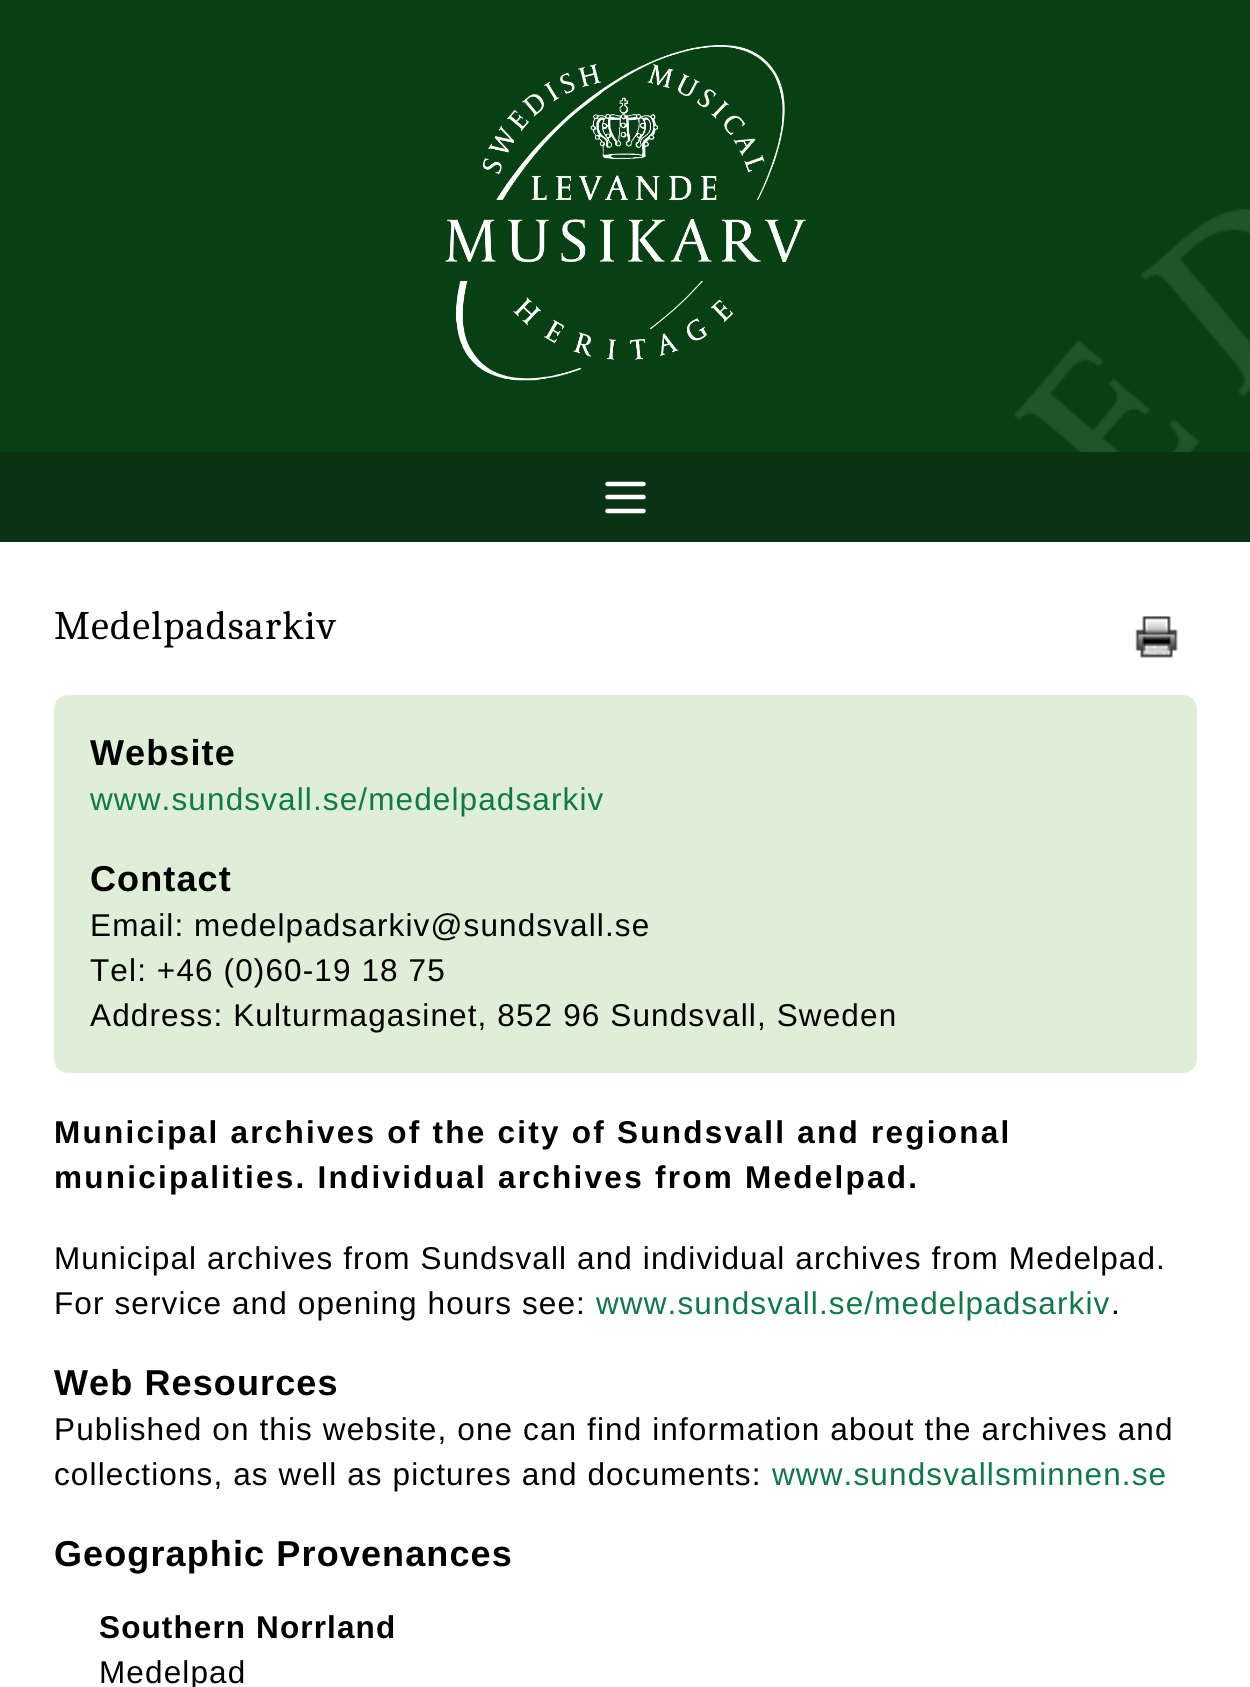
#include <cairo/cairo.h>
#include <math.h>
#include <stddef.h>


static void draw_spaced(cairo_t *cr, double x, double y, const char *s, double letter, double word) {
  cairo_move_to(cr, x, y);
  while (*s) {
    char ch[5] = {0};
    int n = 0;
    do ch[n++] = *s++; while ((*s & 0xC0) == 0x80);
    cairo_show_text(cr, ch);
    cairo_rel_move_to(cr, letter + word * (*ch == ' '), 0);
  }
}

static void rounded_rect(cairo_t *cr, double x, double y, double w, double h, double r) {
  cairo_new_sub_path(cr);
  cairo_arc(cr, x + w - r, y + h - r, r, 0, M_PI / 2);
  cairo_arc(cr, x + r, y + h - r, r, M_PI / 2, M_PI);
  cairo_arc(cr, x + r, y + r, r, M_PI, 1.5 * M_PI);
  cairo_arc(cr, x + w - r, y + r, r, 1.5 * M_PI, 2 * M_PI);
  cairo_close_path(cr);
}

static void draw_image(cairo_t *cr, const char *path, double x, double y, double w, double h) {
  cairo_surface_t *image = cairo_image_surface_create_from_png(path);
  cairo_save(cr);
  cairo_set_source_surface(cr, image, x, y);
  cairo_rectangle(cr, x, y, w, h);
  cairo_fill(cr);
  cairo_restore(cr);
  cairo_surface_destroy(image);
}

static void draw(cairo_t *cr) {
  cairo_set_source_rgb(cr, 7 / 255.0, 65 / 255.0, 19 / 255.0);
  cairo_paint(cr);
  draw_image(cr, "images/1.png", 445, 45, 361, 336);
  cairo_set_source_rgb(cr, 9 / 255.0, 51 / 255.0, 20 / 255.0);
  cairo_rectangle(cr, 0, 452, 1250, 90);
  cairo_fill(cr);
  cairo_new_path(cr);
  cairo_move_to(cr, 607.5, 484);
  cairo_line_to(cr, 643.5, 484);
  cairo_move_to(cr, 607.5, 497);
  cairo_line_to(cr, 643.5, 497);
  cairo_move_to(cr, 607.5, 511);
  cairo_line_to(cr, 643.5, 511);
  cairo_set_source_rgb(cr, 1, 1, 1);
  cairo_set_line_width(cr, 4.5);
  cairo_set_line_cap(cr, CAIRO_LINE_CAP_ROUND);
  cairo_set_line_join(cr, CAIRO_LINE_JOIN_ROUND);
  cairo_stroke(cr);
  draw_image(cr, "images/2.png", 1014, 209, 236, 243);
  cairo_rectangle(cr, 0, 542, 1250, 1145);
  cairo_fill(cr);
  draw_image(cr, "images/3.png", 1135, 616, 43, 42);
  cairo_set_source_rgb(cr, 223 / 255.0, 238 / 255.0, 214 / 255.0);
  rounded_rect(cr, 54, 695, 1143, 378, 14);
  cairo_fill(cr);
  cairo_select_font_face(cr, "Caladea", CAIRO_FONT_SLANT_NORMAL, CAIRO_FONT_WEIGHT_NORMAL);
  cairo_set_font_size(cr, 40.5);
  cairo_set_source_rgb(cr, 0, 0, 0);
  draw_spaced(cr, 54, 639, "Medelpadsarkiv", 1.12, 0);
  cairo_select_font_face(cr, "Liberation Sans", CAIRO_FONT_SLANT_NORMAL, CAIRO_FONT_WEIGHT_BOLD);
  cairo_set_font_size(cr, 36);
  draw_spaced(cr, 90, 765, "Website", 1.12, 0);
  cairo_select_font_face(cr, "Liberation Sans", CAIRO_FONT_SLANT_NORMAL, CAIRO_FONT_WEIGHT_NORMAL);
  cairo_set_font_size(cr, 31.5);
  cairo_set_source_rgb(cr, 16 / 255.0, 121 / 255.0, 72 / 255.0);
  draw_spaced(cr, 90, 810, "www.sundsvall.se/medelpadsarkiv", 1.12, 0);
  cairo_select_font_face(cr, "Liberation Sans", CAIRO_FONT_SLANT_NORMAL, CAIRO_FONT_WEIGHT_BOLD);
  cairo_set_font_size(cr, 36);
  cairo_set_source_rgb(cr, 0, 0, 0);
  draw_spaced(cr, 90, 891, "Contact", 1.12, 0);
  cairo_select_font_face(cr, "Liberation Sans", CAIRO_FONT_SLANT_NORMAL, CAIRO_FONT_WEIGHT_NORMAL);
  cairo_set_font_size(cr, 31.5);
  draw_spaced(cr, 90, 936, "Email: medelpadsarkiv@sundsvall.se", 1.12, 0);
  draw_spaced(cr, 90, 981, "Tel: +46 (0)60-19 18 75", 1.12, 0);
  draw_spaced(cr, 90, 1026, "Address: Kulturmagasinet, 852 96 Sundsvall, Sweden", 1.12, 0);
  cairo_select_font_face(cr, "Liberation Sans", CAIRO_FONT_SLANT_NORMAL, CAIRO_FONT_WEIGHT_BOLD);
  draw_spaced(cr, 54, 1143, "Municipal archives of the city of Sundsvall and regional", 2.25, 0);
  draw_spaced(cr, 54, 1188, "municipalities. Individual archives from Medelpad.", 2.25, 0);
  cairo_select_font_face(cr, "Liberation Sans", CAIRO_FONT_SLANT_NORMAL, CAIRO_FONT_WEIGHT_NORMAL);
  draw_spaced(cr, 54, 1269, "Municipal archives from Sundsvall and individual archives from Medelpad.", 1.12, 0);
  draw_spaced(cr, 54, 1314, "For service and opening hours see:", 1.12, 0);
  cairo_set_source_rgb(cr, 16 / 255.0, 121 / 255.0, 72 / 255.0);
  draw_spaced(cr, 596, 1314, "www.sundsvall.se/medelpadsarkiv", 1.12, 0);
  cairo_set_source_rgb(cr, 0, 0, 0);
  draw_spaced(cr, 1111, 1314, ".", 1.12, 0);
  cairo_select_font_face(cr, "Liberation Sans", CAIRO_FONT_SLANT_NORMAL, CAIRO_FONT_WEIGHT_BOLD);
  cairo_set_font_size(cr, 36);
  draw_spaced(cr, 54, 1395, "Web Resources", 1.12, 0);
  cairo_select_font_face(cr, "Liberation Sans", CAIRO_FONT_SLANT_NORMAL, CAIRO_FONT_WEIGHT_NORMAL);
  cairo_set_font_size(cr, 31.5);
  draw_spaced(cr, 54, 1440, "Published on this website, one can find information about the archives and", 1.12, 0);
  draw_spaced(cr, 54, 1485, "collections, as well as pictures and documents:", 1.12, 0);
  cairo_set_source_rgb(cr, 16 / 255.0, 121 / 255.0, 72 / 255.0);
  draw_spaced(cr, 772, 1485, "www.sundsvallsminnen.se", 1.12, 0);
  cairo_select_font_face(cr, "Liberation Sans", CAIRO_FONT_SLANT_NORMAL, CAIRO_FONT_WEIGHT_BOLD);
  cairo_set_font_size(cr, 36);
  cairo_set_source_rgb(cr, 0, 0, 0);
  draw_spaced(cr, 54, 1566, "Geographic Provenances", 1.12, 0);
  cairo_set_font_size(cr, 31.5);
  draw_spaced(cr, 99, 1638, "Southern Norrland", 1.12, 0);
  cairo_select_font_face(cr, "Liberation Sans", CAIRO_FONT_SLANT_NORMAL, CAIRO_FONT_WEIGHT_NORMAL);
  draw_spaced(cr, 99, 1683, "Medelpad", 1.12, 0);
}

int main(void) {
  cairo_surface_t *surface = cairo_image_surface_create(CAIRO_FORMAT_RGB24, 1250, 1687);
  cairo_t *cr = cairo_create(surface);
  cairo_font_options_t *options = cairo_font_options_create();
  cairo_font_options_set_hint_metrics(options, CAIRO_HINT_METRICS_OFF);
  cairo_font_options_set_hint_style(options, CAIRO_HINT_STYLE_NONE);
  cairo_set_font_options(cr, options);
  cairo_set_miter_limit(cr, 4);
  draw(cr);
  cairo_surface_write_to_png(surface, "out.png");
  cairo_font_options_destroy(options);
  cairo_destroy(cr);
  cairo_surface_destroy(surface);
  return 0;
}
